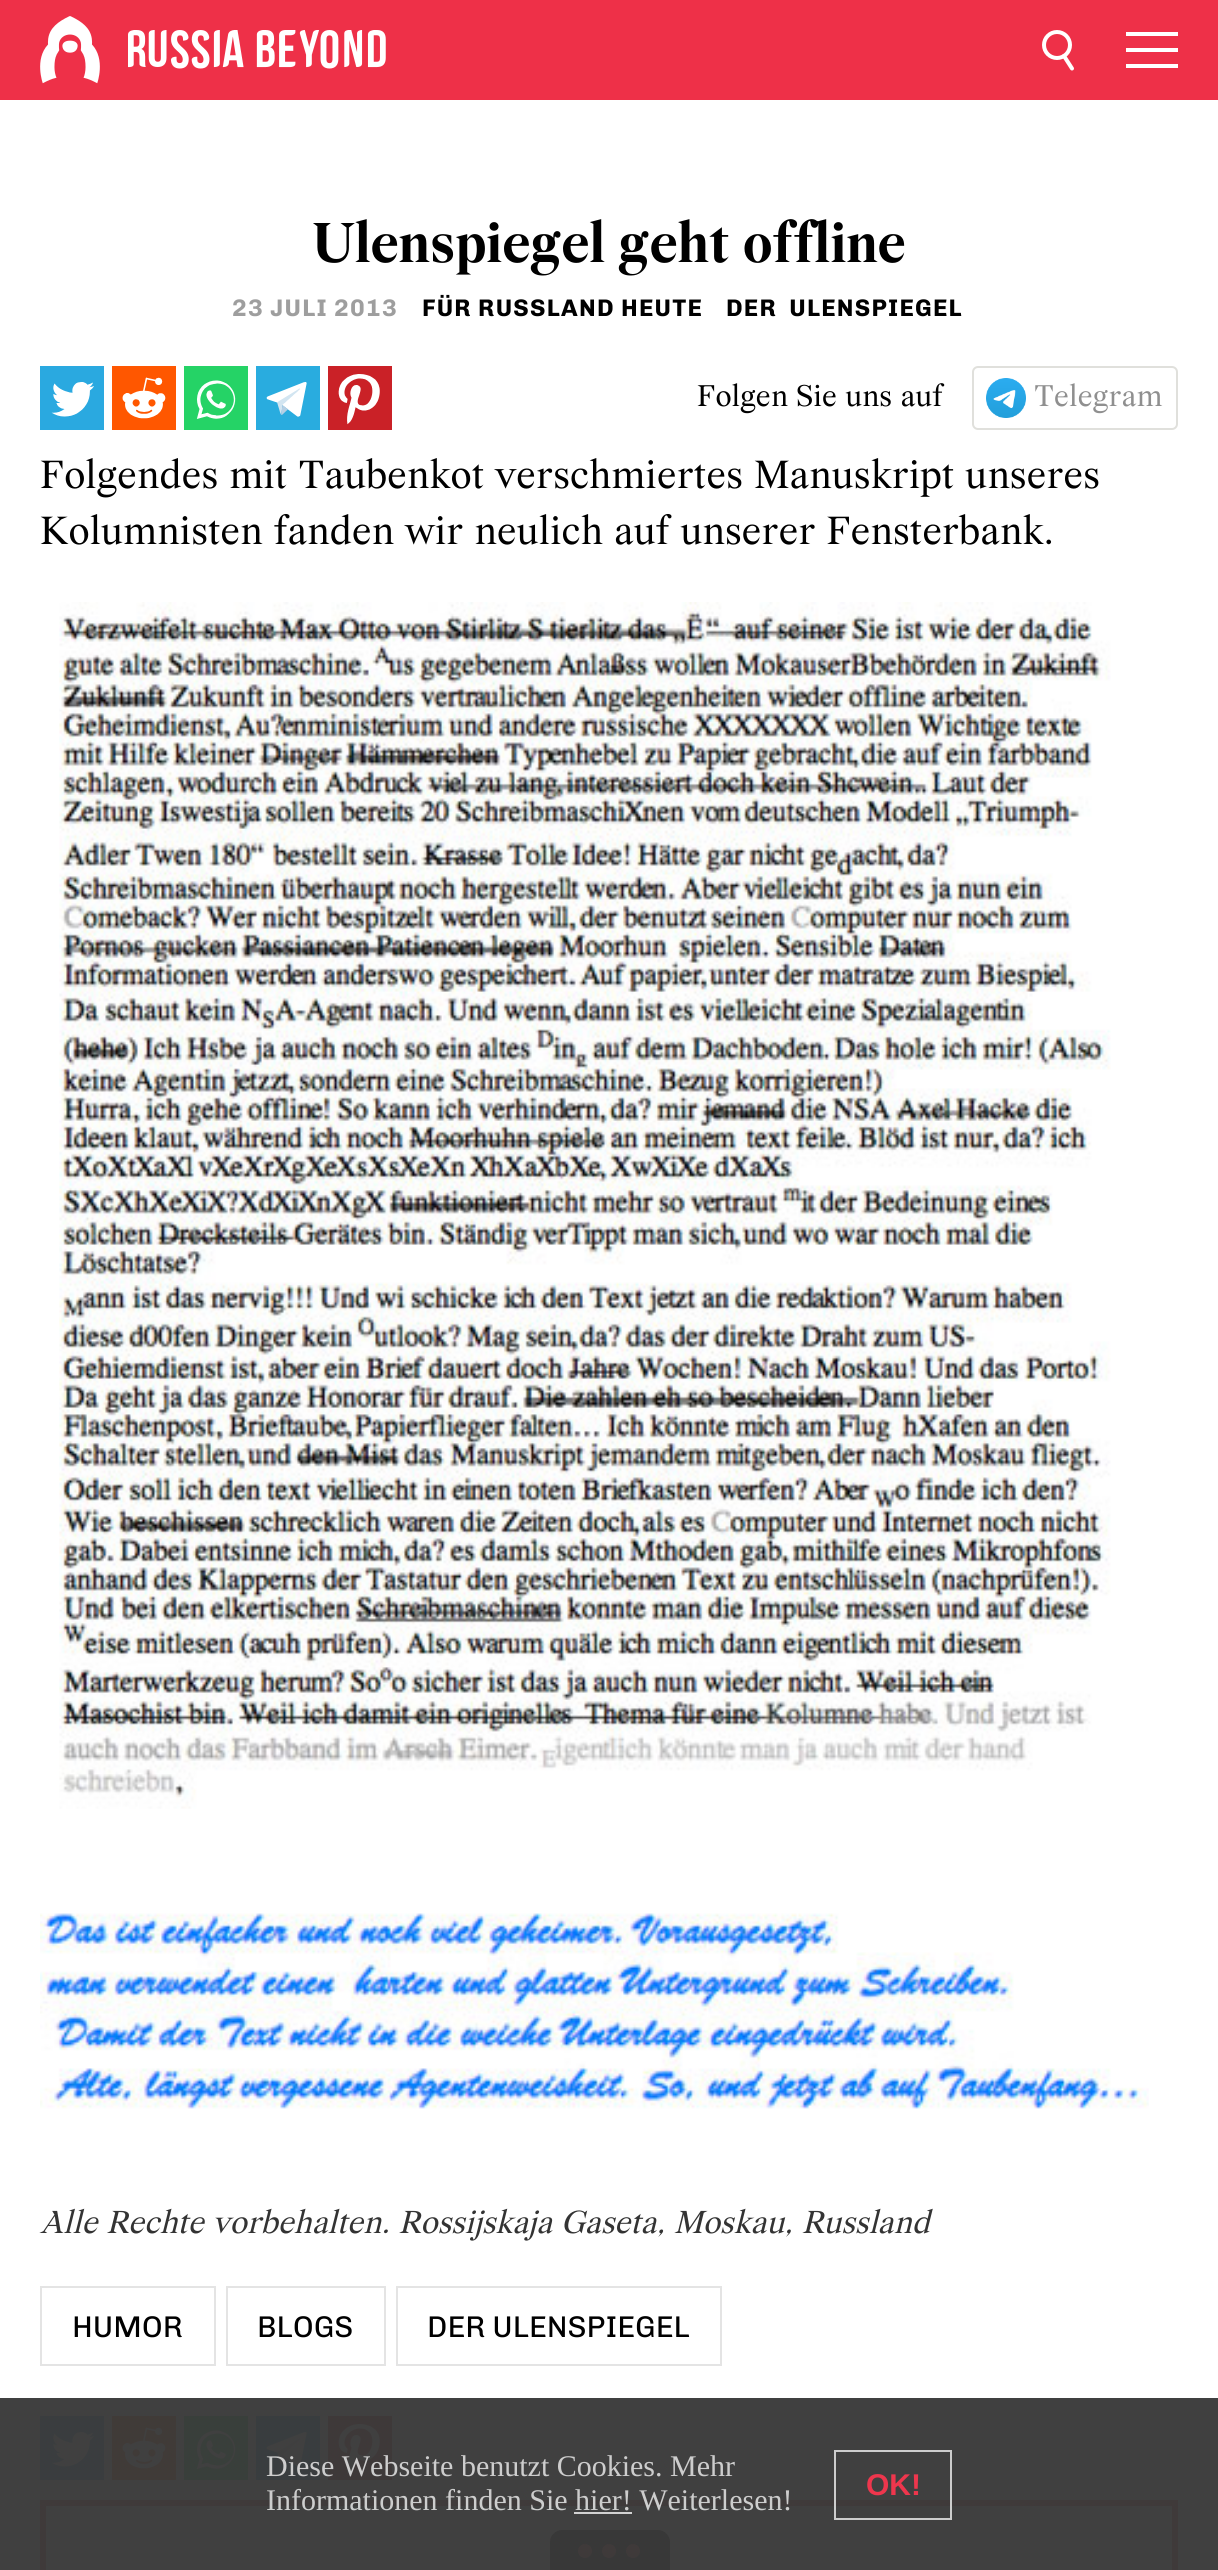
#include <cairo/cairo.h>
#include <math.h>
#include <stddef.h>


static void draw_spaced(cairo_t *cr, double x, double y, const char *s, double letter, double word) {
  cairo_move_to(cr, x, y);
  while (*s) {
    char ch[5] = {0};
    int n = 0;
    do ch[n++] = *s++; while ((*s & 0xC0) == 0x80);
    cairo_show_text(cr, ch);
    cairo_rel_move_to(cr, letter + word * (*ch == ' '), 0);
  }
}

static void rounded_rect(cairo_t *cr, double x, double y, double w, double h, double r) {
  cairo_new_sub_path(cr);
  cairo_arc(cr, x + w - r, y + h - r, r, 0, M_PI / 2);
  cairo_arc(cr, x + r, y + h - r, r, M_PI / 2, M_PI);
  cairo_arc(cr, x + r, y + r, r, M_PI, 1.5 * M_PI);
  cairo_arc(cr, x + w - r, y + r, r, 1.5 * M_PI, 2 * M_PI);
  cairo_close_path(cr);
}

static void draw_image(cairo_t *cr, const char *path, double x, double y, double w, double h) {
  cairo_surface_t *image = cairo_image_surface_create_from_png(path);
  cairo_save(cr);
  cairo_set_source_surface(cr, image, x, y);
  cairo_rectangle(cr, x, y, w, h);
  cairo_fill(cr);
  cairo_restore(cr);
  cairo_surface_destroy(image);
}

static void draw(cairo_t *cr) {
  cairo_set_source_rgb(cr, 1, 1, 1);
  cairo_paint(cr);
  cairo_set_source_rgb(cr, 238 / 255.0, 48 / 255.0, 72 / 255.0);
  cairo_rectangle(cr, 0, 0, 1218, 100);
  cairo_fill(cr);
  draw_image(cr, "images/1.png", 40, 16, 60, 68);
  draw_image(cr, "images/2.png", 128, 30, 258, 39);
  cairo_arc(cr, 1057, 45, 13, 0, 2 * M_PI);
  cairo_set_source_rgb(cr, 1, 1, 1);
  cairo_set_line_width(cr, 4);
  cairo_stroke(cr);
  cairo_new_path(cr);
  cairo_move_to(cr, 1064, 56);
  cairo_line_to(cr, 1072, 68.5);
  cairo_set_line_cap(cr, CAIRO_LINE_CAP_ROUND);
  cairo_stroke(cr);
  cairo_set_fill_rule(cr, CAIRO_FILL_RULE_EVEN_ODD);
  cairo_new_path(cr);
  cairo_move_to(cr, 1126, 32);
  cairo_line_to(cr, 1178, 32);
  cairo_line_to(cr, 1178, 36);
  cairo_line_to(cr, 1126, 36);
  cairo_close_path(cr);
  cairo_move_to(cr, 1126, 48);
  cairo_line_to(cr, 1178, 48);
  cairo_line_to(cr, 1178, 52);
  cairo_line_to(cr, 1126, 52);
  cairo_close_path(cr);
  cairo_move_to(cr, 1126, 64);
  cairo_line_to(cr, 1178, 64);
  cairo_line_to(cr, 1178, 68);
  cairo_line_to(cr, 1126, 68);
  cairo_close_path(cr);
  cairo_fill(cr);
  cairo_set_source_rgb(cr, 64 / 255.0, 64 / 255.0, 64 / 255.0);
  cairo_rectangle(cr, 0, 2398, 1218, 172);
  cairo_fill(cr);
  draw_image(cr, "images/3.png", 40, 366, 64, 64);
  draw_image(cr, "images/4.png", 112, 366, 64, 64);
  draw_image(cr, "images/5.png", 184, 366, 64, 64);
  draw_image(cr, "images/6.png", 256, 366, 64, 64);
  draw_image(cr, "images/7.png", 328, 366, 64, 64);
  draw_image(cr, "images/8.png", 986, 378, 40, 40);
  rounded_rect(cr, 973, 367, 204, 62, 5);
  cairo_set_source_rgb(cr, 224 / 255.0, 224 / 255.0, 220 / 255.0);
  cairo_set_line_width(cr, 2);
  cairo_set_line_cap(cr, CAIRO_LINE_CAP_BUTT);
  cairo_stroke(cr);
  draw_image(cr, "images/9.png", 59, 602, 1052, 1207);
  draw_image(cr, "images/10.png", 40, 1913, 1109, 196);
  cairo_rectangle(cr, 41, 2287, 174, 78);
  cairo_set_source_rgb(cr, 228 / 255.0, 228 / 255.0, 228 / 255.0);
  cairo_stroke(cr);
  cairo_rectangle(cr, 227, 2287, 158, 78);
  cairo_stroke(cr);
  cairo_rectangle(cr, 397, 2287, 324, 78);
  cairo_stroke(cr);
  draw_image(cr, "images/11.png", 40, 2416, 64, 64);
  draw_image(cr, "images/12.png", 112, 2416, 64, 64);
  draw_image(cr, "images/13.png", 184, 2416, 64, 64);
  draw_image(cr, "images/14.png", 256, 2416, 64, 64);
  draw_image(cr, "images/15.png", 328, 2416, 64, 64);
  cairo_rectangle(cr, 43, 2503, 1132, 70);
  cairo_set_source_rgb(cr, 63 / 255.0, 58 / 255.0, 58 / 255.0);
  cairo_set_line_width(cr, 6);
  cairo_stroke(cr);
  cairo_set_source_rgb(cr, 56 / 255.0, 56 / 255.0, 56 / 255.0);
  cairo_new_path(cr);
  cairo_move_to(cr, 562, 2530);
  cairo_line_to(cr, 658, 2530);
  cairo_curve_to(cr, 664.5, 2530, 670, 2535.5, 670, 2542);
  cairo_line_to(cr, 670, 2570);
  cairo_line_to(cr, 550, 2570);
  cairo_line_to(cr, 550, 2542);
  cairo_curve_to(cr, 550, 2535.5, 555.5, 2530, 562, 2530);
  cairo_close_path(cr);
  cairo_fill(cr);
  cairo_set_source_rgb(cr, 63 / 255.0, 58 / 255.0, 58 / 255.0);
  cairo_arc(cr, 585, 2551, 7, 0, 2 * M_PI);
  cairo_fill(cr);
  cairo_arc(cr, 609, 2551, 7, 0, 2 * M_PI);
  cairo_fill(cr);
  cairo_arc(cr, 633, 2551, 7, 0, 2 * M_PI);
  cairo_fill(cr);
  cairo_set_source_rgb(cr, 210 / 255.0, 210 / 255.0, 210 / 255.0);
  cairo_rectangle(cr, 574, 2512, 58, 2);
  cairo_fill(cr);
  cairo_rectangle(cr, 835, 2451, 116, 68);
  cairo_set_source_rgba(cr, 209 / 255.0, 209 / 255.0, 209 / 255.0, 0.97);
  cairo_set_line_width(cr, 2);
  cairo_stroke(cr);
  cairo_select_font_face(cr, "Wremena", CAIRO_FONT_SLANT_NORMAL, CAIRO_FONT_WEIGHT_BOLD);
  cairo_set_font_size(cr, 60);
  cairo_set_source_rgb(cr, 0, 0, 0);
  cairo_move_to(cr, 312, 262);
  cairo_show_text(cr, "Ulenspiegel geht offline");
  cairo_select_font_face(cr, "Chivo", CAIRO_FONT_SLANT_NORMAL, CAIRO_FONT_WEIGHT_BOLD);
  cairo_set_font_size(cr, 24);
  cairo_set_source_rgb(cr, 158 / 255.0, 158 / 255.0, 158 / 255.0);
  draw_spaced(cr, 232, 316, "23 JULI 2013", 1.25, 0);
  cairo_set_source_rgb(cr, 0, 0, 0);
  draw_spaced(cr, 422, 316, "FÜR RUSSLAND HEUTE", 1.25, 0);
  draw_spaced(cr, 726, 316, "DER ULENSPIEGEL", 1.25, 6);
  cairo_select_font_face(cr, "Wremena", CAIRO_FONT_SLANT_NORMAL, CAIRO_FONT_WEIGHT_NORMAL);
  cairo_set_font_size(cr, 32);
  cairo_move_to(cr, 697, 406);
  cairo_show_text(cr, "Folgen Sie uns auf");
  cairo_set_source_rgb(cr, 143 / 255.0, 143 / 255.0, 143 / 255.0);
  cairo_move_to(cr, 1034, 406);
  cairo_show_text(cr, "Telegram");
  cairo_set_font_size(cr, 42);
  cairo_set_source_rgb(cr, 0, 0, 0);
  cairo_move_to(cr, 40, 488);
  cairo_show_text(cr, "Folgendes mit Taubenkot verschmiertes Manuskript unseres");
  cairo_move_to(cr, 40, 544);
  cairo_show_text(cr, "Kolumnisten fanden wir neulich auf unserer Fensterbank.");
  cairo_select_font_face(cr, "Wremena", CAIRO_FONT_SLANT_ITALIC, CAIRO_FONT_WEIGHT_NORMAL);
  cairo_set_font_size(cr, 34);
  cairo_set_source_rgb(cr, 51 / 255.0, 51 / 255.0, 51 / 255.0);
  cairo_move_to(cr, 40, 2233);
  cairo_show_text(cr, "Alle Rechte vorbehalten. Rossijskaja Gaseta, Moskau, Russland");
  cairo_select_font_face(cr, "Chivo", CAIRO_FONT_SLANT_NORMAL, CAIRO_FONT_WEIGHT_NORMAL);
  cairo_set_font_size(cr, 30);
  cairo_set_source_rgb(cr, 0, 0, 0);
  cairo_move_to(cr, 72, 2337);
  cairo_show_text(cr, "HUMOR");
  cairo_move_to(cr, 257, 2337);
  cairo_show_text(cr, "BLOGS");
  cairo_move_to(cr, 427, 2337);
  cairo_show_text(cr, "DER ULENSPIEGEL");
  cairo_select_font_face(cr, "Liberation Serif", CAIRO_FONT_SLANT_NORMAL, CAIRO_FONT_WEIGHT_NORMAL);
  cairo_set_source_rgb(cr, 205 / 255.0, 205 / 255.0, 205 / 255.0);
  cairo_move_to(cr, 266, 2476);
  cairo_show_text(cr, "Diese Webseite benutzt Cookies. Mehr");
  cairo_move_to(cr, 266, 2510);
  cairo_show_text(cr, "Informationen finden Sie hier! Weiterlesen!");
  cairo_select_font_face(cr, "Liberation Sans", CAIRO_FONT_SLANT_NORMAL, CAIRO_FONT_WEIGHT_BOLD);
  cairo_set_source_rgb(cr, 239 / 255.0, 54 / 255.0, 77 / 255.0);
  cairo_move_to(cr, 866, 2495);
  cairo_show_text(cr, "OK!");
}

int main(void) {
  cairo_surface_t *surface = cairo_image_surface_create(CAIRO_FORMAT_RGB24, 1218, 2570);
  cairo_t *cr = cairo_create(surface);
  cairo_font_options_t *options = cairo_font_options_create();
  cairo_font_options_set_hint_metrics(options, CAIRO_HINT_METRICS_OFF);
  cairo_font_options_set_hint_style(options, CAIRO_HINT_STYLE_NONE);
  cairo_set_font_options(cr, options);
  cairo_set_miter_limit(cr, 4);
  draw(cr);
  cairo_surface_write_to_png(surface, "out.png");
  cairo_font_options_destroy(options);
  cairo_destroy(cr);
  cairo_surface_destroy(surface);
  return 0;
}
